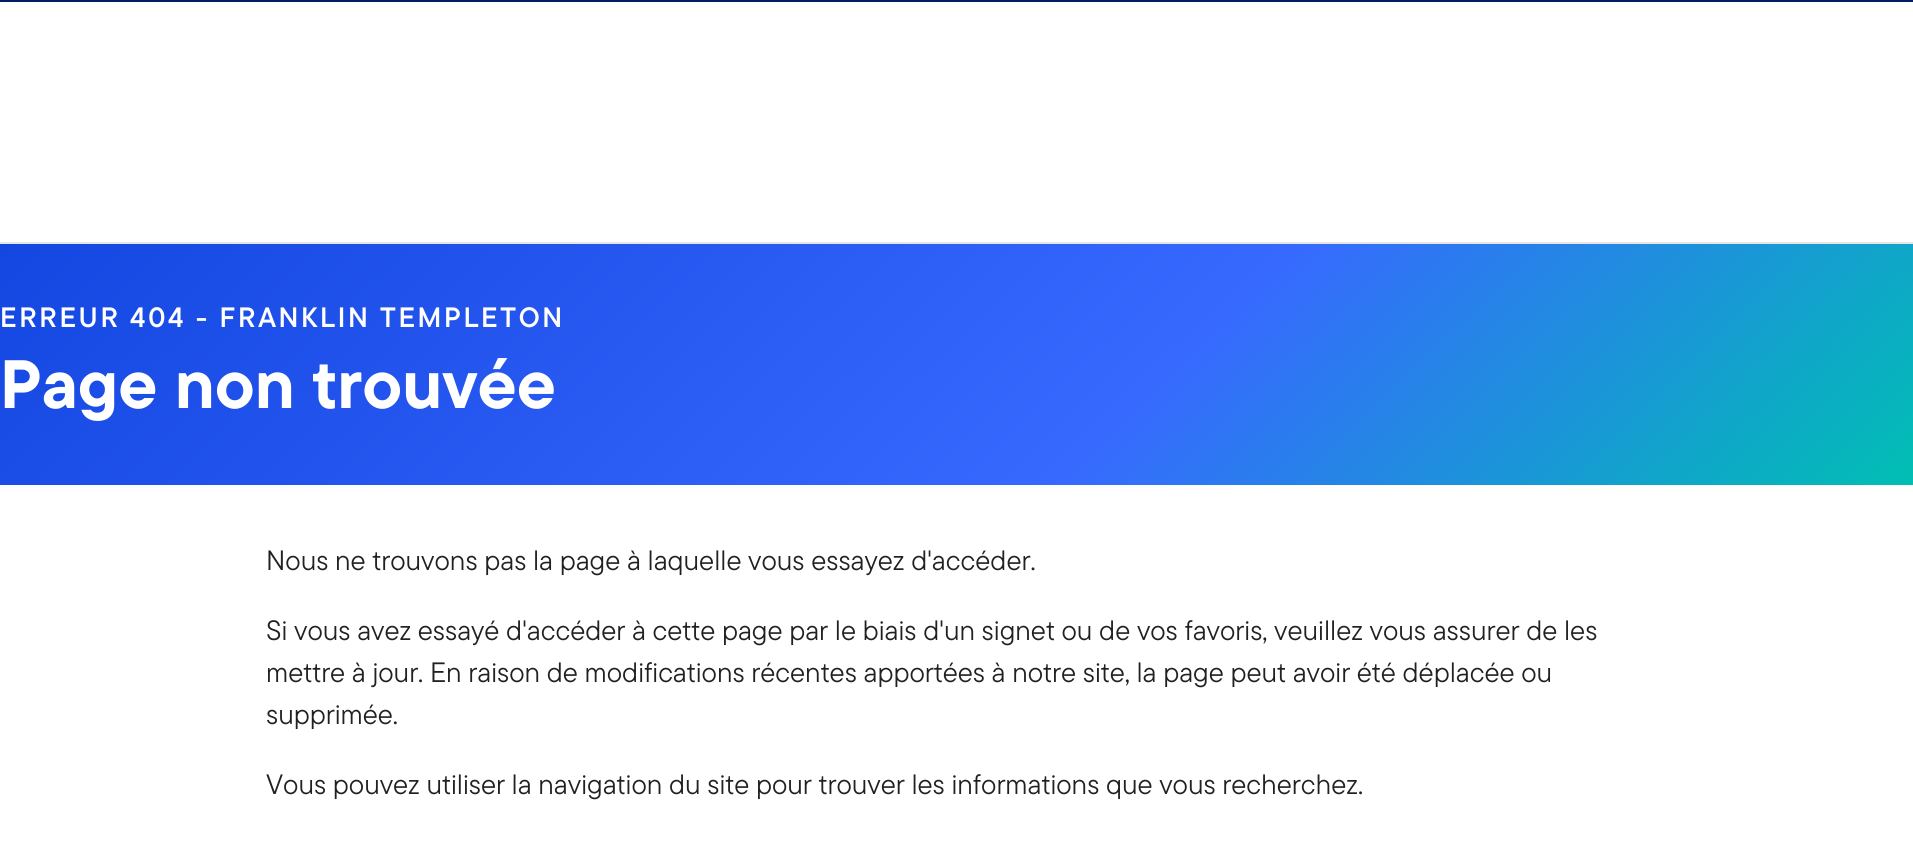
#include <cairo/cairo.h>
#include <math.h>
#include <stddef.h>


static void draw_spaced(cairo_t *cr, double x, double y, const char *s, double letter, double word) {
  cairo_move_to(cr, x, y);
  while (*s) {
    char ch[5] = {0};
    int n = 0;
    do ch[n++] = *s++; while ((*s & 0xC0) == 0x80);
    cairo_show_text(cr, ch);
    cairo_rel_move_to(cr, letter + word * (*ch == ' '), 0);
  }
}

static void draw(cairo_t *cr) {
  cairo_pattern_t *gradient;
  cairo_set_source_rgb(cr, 1, 1, 1);
  cairo_paint(cr);
  cairo_set_source_rgb(cr, 230 / 255.0, 230 / 255.0, 230 / 255.0);
  cairo_rectangle(cr, 0, 242, 1913, 2);
  cairo_fill(cr);
  cairo_set_source_rgb(cr, 0, 30 / 255.0, 98 / 255.0);
  cairo_rectangle(cr, 0, 0, 1913, 2);
  cairo_fill(cr);
  gradient = cairo_pattern_create_linear(428, -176, 1486, 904);
  cairo_pattern_add_color_stop_rgba(gradient, 0, 20 / 255.0, 70 / 255.0, 225 / 255.0, 1);
  cairo_pattern_add_color_stop_rgba(gradient, 0.6, 55 / 255.0, 105 / 255.0, 1, 1);
  cairo_pattern_add_color_stop_rgba(gradient, 1, 0, 191 / 255.0, 179 / 255.0, 1);
  cairo_set_source(cr, gradient);
  cairo_pattern_destroy(gradient);
  cairo_rectangle(cr, 0, 244, 1913, 241);
  cairo_fill(cr);
  cairo_select_font_face(cr, "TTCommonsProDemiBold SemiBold", CAIRO_FONT_SLANT_NORMAL, CAIRO_FONT_WEIGHT_NORMAL);
  cairo_set_font_size(cr, 28);
  cairo_set_source_rgb(cr, 1, 1, 1);
  draw_spaced(cr, 0, 327, "ERREUR 404 - FRANKLIN TEMPLETON", 2.65, 0);
  cairo_select_font_face(cr, "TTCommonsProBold", CAIRO_FONT_SLANT_NORMAL, CAIRO_FONT_WEIGHT_BOLD);
  cairo_set_font_size(cr, 68.25);
  cairo_move_to(cr, 0, 408);
  cairo_show_text(cr, "Page non trouvée");
  cairo_select_font_face(cr, "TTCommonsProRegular", CAIRO_FONT_SLANT_NORMAL, CAIRO_FONT_WEIGHT_NORMAL);
  cairo_set_font_size(cr, 28);
  cairo_set_source_rgb(cr, 33 / 255.0, 33 / 255.0, 33 / 255.0);
  cairo_move_to(cr, 266, 570);
  cairo_show_text(cr, "Nous ne trouvons pas la page à laquelle vous essayez d'accéder.");
  cairo_move_to(cr, 266, 640);
  cairo_show_text(cr, "Si vous avez essayé d'accéder à cette page par le biais d'un signet ou de vos favoris, veuillez vous assurer de les");
  cairo_move_to(cr, 266, 682);
  cairo_show_text(cr, "mettre à jour. En raison de modifications récentes apportées à notre site, la page peut avoir été déplacée ou");
  cairo_move_to(cr, 266, 724);
  cairo_show_text(cr, "supprimée.");
  cairo_move_to(cr, 266, 794);
  cairo_show_text(cr, "Vous pouvez utiliser la navigation du site pour trouver les informations que vous recherchez.");
}

int main(void) {
  cairo_surface_t *surface = cairo_image_surface_create(CAIRO_FORMAT_RGB24, 1913, 841);
  cairo_t *cr = cairo_create(surface);
  cairo_font_options_t *options = cairo_font_options_create();
  cairo_font_options_set_hint_metrics(options, CAIRO_HINT_METRICS_OFF);
  cairo_font_options_set_hint_style(options, CAIRO_HINT_STYLE_NONE);
  cairo_set_font_options(cr, options);
  cairo_set_miter_limit(cr, 4);
  draw(cr);
  cairo_surface_write_to_png(surface, "out.png");
  cairo_font_options_destroy(options);
  cairo_destroy(cr);
  cairo_surface_destroy(surface);
  return 0;
}
